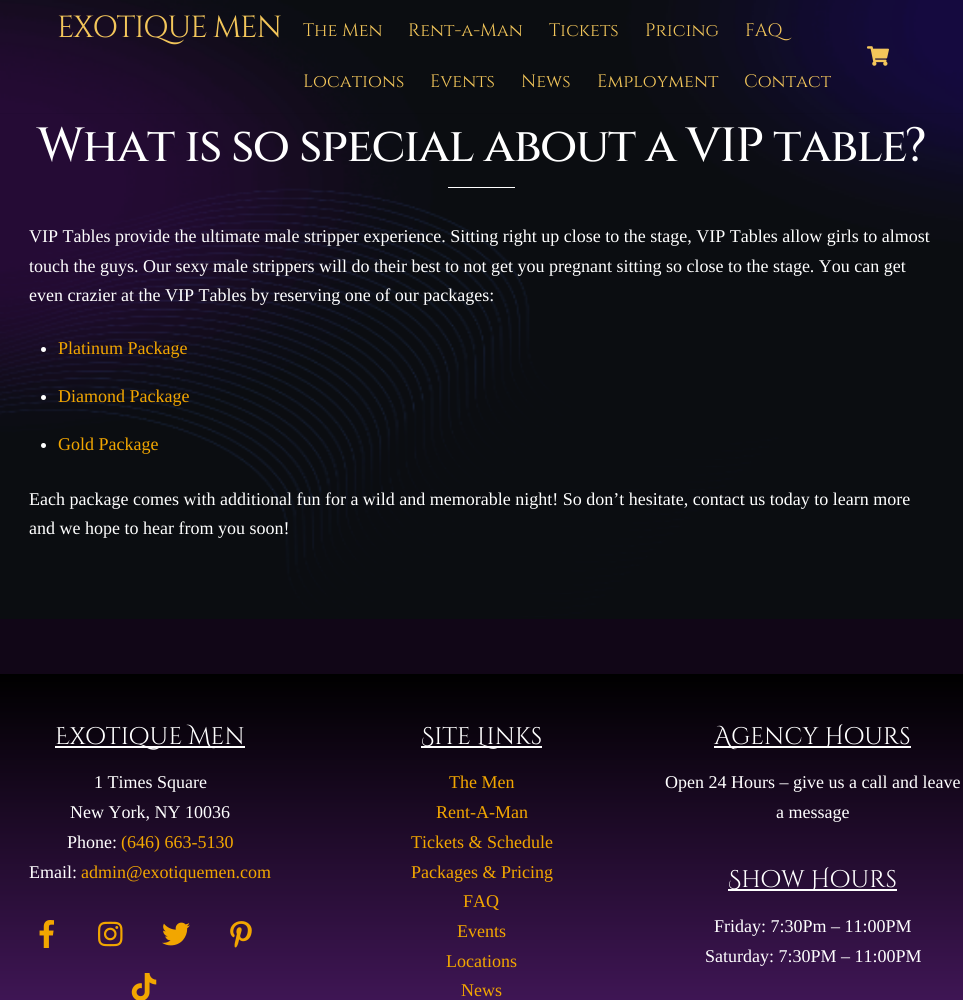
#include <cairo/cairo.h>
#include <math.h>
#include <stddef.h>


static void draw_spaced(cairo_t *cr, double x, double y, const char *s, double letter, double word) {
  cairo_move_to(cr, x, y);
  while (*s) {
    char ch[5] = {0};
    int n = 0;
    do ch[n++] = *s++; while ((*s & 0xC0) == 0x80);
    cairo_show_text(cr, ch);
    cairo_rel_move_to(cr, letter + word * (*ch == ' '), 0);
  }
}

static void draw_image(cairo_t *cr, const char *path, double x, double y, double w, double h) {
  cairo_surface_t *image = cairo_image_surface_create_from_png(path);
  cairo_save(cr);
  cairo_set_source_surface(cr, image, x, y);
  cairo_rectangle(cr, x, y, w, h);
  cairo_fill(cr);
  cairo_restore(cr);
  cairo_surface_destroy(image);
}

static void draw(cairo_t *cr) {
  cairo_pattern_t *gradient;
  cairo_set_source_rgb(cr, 1, 1, 1);
  cairo_paint(cr);
  draw_image(cr, "images/1.png", 0, 0, 963, 619);
  cairo_set_source_rgba(cr, 0, 0, 0, 0.05);
  cairo_rectangle(cr, 0, 113, 963, 1);
  cairo_fill(cr);
  draw_image(cr, "images/2.png", 867, 46, 22, 20);
  cairo_set_source_rgb(cr, 1, 1, 1);
  cairo_rectangle(cr, 448, 187, 67, 1);
  cairo_fill(cr);
  cairo_arc(cr, 43.5, 349.5, 2.5, 0, 2 * M_PI);
  cairo_fill(cr);
  cairo_arc(cr, 43.5, 397.5, 2.5, 0, 2 * M_PI);
  cairo_fill(cr);
  cairo_arc(cr, 43.5, 445.5, 2.5, 0, 2 * M_PI);
  cairo_fill(cr);
  cairo_set_source_rgb(cr, 17 / 255.0, 6 / 255.0, 23 / 255.0);
  cairo_rectangle(cr, 0, 619, 963, 55);
  cairo_fill(cr);
  gradient = cairo_pattern_create_linear(482, 674, 482, 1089);
  cairo_pattern_add_color_stop_rgba(gradient, 0, 0, 0, 0, 1);
  cairo_pattern_add_color_stop_rgba(gradient, 0.88, 70 / 255.0, 24 / 255.0, 94 / 255.0, 1);
  cairo_pattern_add_color_stop_rgba(gradient, 1, 70 / 255.0, 24 / 255.0, 94 / 255.0, 1);
  cairo_pattern_add_color_stop_rgba(gradient, 1, 1, 1, 1, 1);
  cairo_set_source(cr, gradient);
  cairo_pattern_destroy(gradient);
  cairo_rectangle(cr, 0, 674, 963, 326);
  cairo_fill(cr);
  cairo_set_source_rgb(cr, 1, 1, 1);
  cairo_rectangle(cr, 55, 746, 190, 2);
  cairo_fill(cr);
  draw_image(cr, "images/3.png", 39, 920, 15, 28);
  draw_image(cr, "images/4.png", 98, 921, 25, 26);
  draw_image(cr, "images/5.png", 162, 922, 28, 24);
  draw_image(cr, "images/6.png", 230, 921, 22, 27);
  draw_image(cr, "images/7.png", 131, 973, 26, 27);
  cairo_rectangle(cr, 421, 746, 121, 2);
  cairo_fill(cr);
  cairo_rectangle(cr, 714, 746, 197, 2);
  cairo_fill(cr);
  cairo_rectangle(cr, 728, 889, 169, 2);
  cairo_fill(cr);
  cairo_select_font_face(cr, "Cinzel", CAIRO_FONT_SLANT_NORMAL, CAIRO_FONT_WEIGHT_NORMAL);
  cairo_set_font_size(cr, 30.5);
  cairo_set_source_rgb(cr, 243 / 255.0, 198 / 255.0, 90 / 255.0);
  draw_spaced(cr, 57, 37, "EXOTIQUE MEN", -1.25, 0);
  cairo_set_font_size(cr, 18);
  cairo_move_to(cr, 303, 36);
  cairo_show_text(cr, "The Men");
  cairo_move_to(cr, 408, 36);
  cairo_show_text(cr, "Rent-a-Man");
  cairo_move_to(cr, 549, 36);
  cairo_show_text(cr, "Tickets");
  cairo_move_to(cr, 645, 36);
  cairo_show_text(cr, "Pricing");
  cairo_move_to(cr, 745, 36);
  cairo_show_text(cr, "FAQ");
  cairo_move_to(cr, 303, 87);
  cairo_show_text(cr, "Locations");
  cairo_move_to(cr, 430, 87);
  cairo_show_text(cr, "Events");
  cairo_move_to(cr, 521, 87);
  cairo_show_text(cr, "News");
  cairo_move_to(cr, 597, 87);
  cairo_show_text(cr, "Employment");
  cairo_move_to(cr, 744, 87);
  cairo_show_text(cr, "Contact");
  cairo_select_font_face(cr, "Cinzel Medium", CAIRO_FONT_SLANT_NORMAL, CAIRO_FONT_WEIGHT_NORMAL);
  cairo_set_font_size(cr, 48);
  cairo_set_source_rgb(cr, 1, 1, 1);
  draw_spaced(cr, 37, 161, "What is so special about a VIP table?", -1.45, 0);
  cairo_select_font_face(cr, "Liberation Serif", CAIRO_FONT_SLANT_NORMAL, CAIRO_FONT_WEIGHT_NORMAL);
  cairo_set_font_size(cr, 18);
  cairo_move_to(cr, 29, 242);
  cairo_show_text(cr, "VIP Tables provide the ultimate male stripper experience. Sitting right up close to the stage, VIP Tables allow girls to almost");
  cairo_move_to(cr, 29, 272);
  cairo_show_text(cr, "touch the guys. Our sexy male strippers will do their best to not get you pregnant sitting so close to the stage. You can get");
  cairo_move_to(cr, 29, 301);
  cairo_show_text(cr, "even crazier at the VIP Tables by reserving one of our packages:");
  cairo_set_source_rgb(cr, 242 / 255.0, 166 / 255.0, 0);
  cairo_move_to(cr, 58, 354);
  cairo_show_text(cr, "Platinum Package");
  cairo_move_to(cr, 58, 402);
  cairo_show_text(cr, "Diamond Package");
  cairo_move_to(cr, 58, 450);
  cairo_show_text(cr, "Gold Package");
  cairo_set_source_rgb(cr, 1, 1, 1);
  cairo_move_to(cr, 29, 505);
  cairo_show_text(cr, "Each package comes with additional fun for a wild and memorable night! So don’t hesitate, contact us today to learn more");
  cairo_move_to(cr, 29, 534);
  cairo_show_text(cr, "and we hope to hear from you soon!");
  cairo_select_font_face(cr, "Cinzel Decorative", CAIRO_FONT_SLANT_NORMAL, CAIRO_FONT_WEIGHT_NORMAL);
  cairo_set_font_size(cr, 24);
  cairo_move_to(cr, 55, 744);
  cairo_show_text(cr, "Exotique Men");
  cairo_select_font_face(cr, "Liberation Serif", CAIRO_FONT_SLANT_NORMAL, CAIRO_FONT_WEIGHT_NORMAL);
  cairo_set_font_size(cr, 18);
  cairo_move_to(cr, 94, 788);
  cairo_show_text(cr, "1 Times Square");
  cairo_move_to(cr, 70, 818);
  cairo_show_text(cr, "New York, NY 10036");
  cairo_move_to(cr, 67, 848);
  cairo_show_text(cr, "Phone:");
  cairo_set_source_rgb(cr, 242 / 255.0, 166 / 255.0, 0);
  cairo_move_to(cr, 121, 848);
  cairo_show_text(cr, "(646) 663-5130");
  cairo_set_source_rgb(cr, 1, 1, 1);
  cairo_move_to(cr, 29, 878);
  cairo_show_text(cr, "Email:");
  cairo_set_source_rgb(cr, 242 / 255.0, 166 / 255.0, 0);
  cairo_move_to(cr, 81, 878);
  cairo_show_text(cr, "admin@exotiquemen.com");
  cairo_select_font_face(cr, "Cinzel Decorative", CAIRO_FONT_SLANT_NORMAL, CAIRO_FONT_WEIGHT_NORMAL);
  cairo_set_font_size(cr, 24);
  cairo_set_source_rgb(cr, 1, 1, 1);
  cairo_move_to(cr, 421, 744);
  cairo_show_text(cr, "Site Links");
  cairo_select_font_face(cr, "Liberation Serif", CAIRO_FONT_SLANT_NORMAL, CAIRO_FONT_WEIGHT_NORMAL);
  cairo_set_font_size(cr, 18);
  cairo_set_source_rgb(cr, 242 / 255.0, 166 / 255.0, 0);
  cairo_move_to(cr, 449, 788);
  cairo_show_text(cr, "The Men");
  cairo_move_to(cr, 436, 818);
  cairo_show_text(cr, "Rent-A-Man");
  cairo_move_to(cr, 411, 848);
  cairo_show_text(cr, "Tickets & Schedule");
  cairo_move_to(cr, 411, 878);
  cairo_show_text(cr, "Packages & Pricing");
  cairo_move_to(cr, 463, 907);
  cairo_show_text(cr, "FAQ");
  cairo_move_to(cr, 457, 937);
  cairo_show_text(cr, "Events");
  cairo_move_to(cr, 446, 967);
  cairo_show_text(cr, "Locations");
  cairo_move_to(cr, 461, 996);
  cairo_show_text(cr, "News");
  cairo_select_font_face(cr, "Cinzel Decorative", CAIRO_FONT_SLANT_NORMAL, CAIRO_FONT_WEIGHT_NORMAL);
  cairo_set_font_size(cr, 24);
  cairo_set_source_rgb(cr, 1, 1, 1);
  cairo_move_to(cr, 714, 744);
  cairo_show_text(cr, "Agency Hours");
  cairo_select_font_face(cr, "Liberation Serif", CAIRO_FONT_SLANT_NORMAL, CAIRO_FONT_WEIGHT_NORMAL);
  cairo_set_font_size(cr, 18);
  cairo_move_to(cr, 665, 788);
  cairo_show_text(cr, "Open 24 Hours – give us a call and leave");
  cairo_move_to(cr, 776, 818);
  cairo_show_text(cr, "a message");
  cairo_select_font_face(cr, "Cinzel Decorative", CAIRO_FONT_SLANT_NORMAL, CAIRO_FONT_WEIGHT_NORMAL);
  cairo_set_font_size(cr, 24);
  cairo_move_to(cr, 728, 887);
  cairo_show_text(cr, "Show Hours");
  cairo_select_font_face(cr, "Liberation Serif", CAIRO_FONT_SLANT_NORMAL, CAIRO_FONT_WEIGHT_NORMAL);
  cairo_set_font_size(cr, 18);
  cairo_move_to(cr, 714, 932);
  cairo_show_text(cr, "Friday: 7:30Pm – 11:00PM");
  cairo_move_to(cr, 705, 962);
  cairo_show_text(cr, "Saturday: 7:30PM – 11:00PM");
}

int main(void) {
  cairo_surface_t *surface = cairo_image_surface_create(CAIRO_FORMAT_RGB24, 963, 1000);
  cairo_t *cr = cairo_create(surface);
  cairo_font_options_t *options = cairo_font_options_create();
  cairo_font_options_set_hint_metrics(options, CAIRO_HINT_METRICS_OFF);
  cairo_font_options_set_hint_style(options, CAIRO_HINT_STYLE_NONE);
  cairo_set_font_options(cr, options);
  cairo_set_miter_limit(cr, 4);
  draw(cr);
  cairo_surface_write_to_png(surface, "out.png");
  cairo_font_options_destroy(options);
  cairo_destroy(cr);
  cairo_surface_destroy(surface);
  return 0;
}
